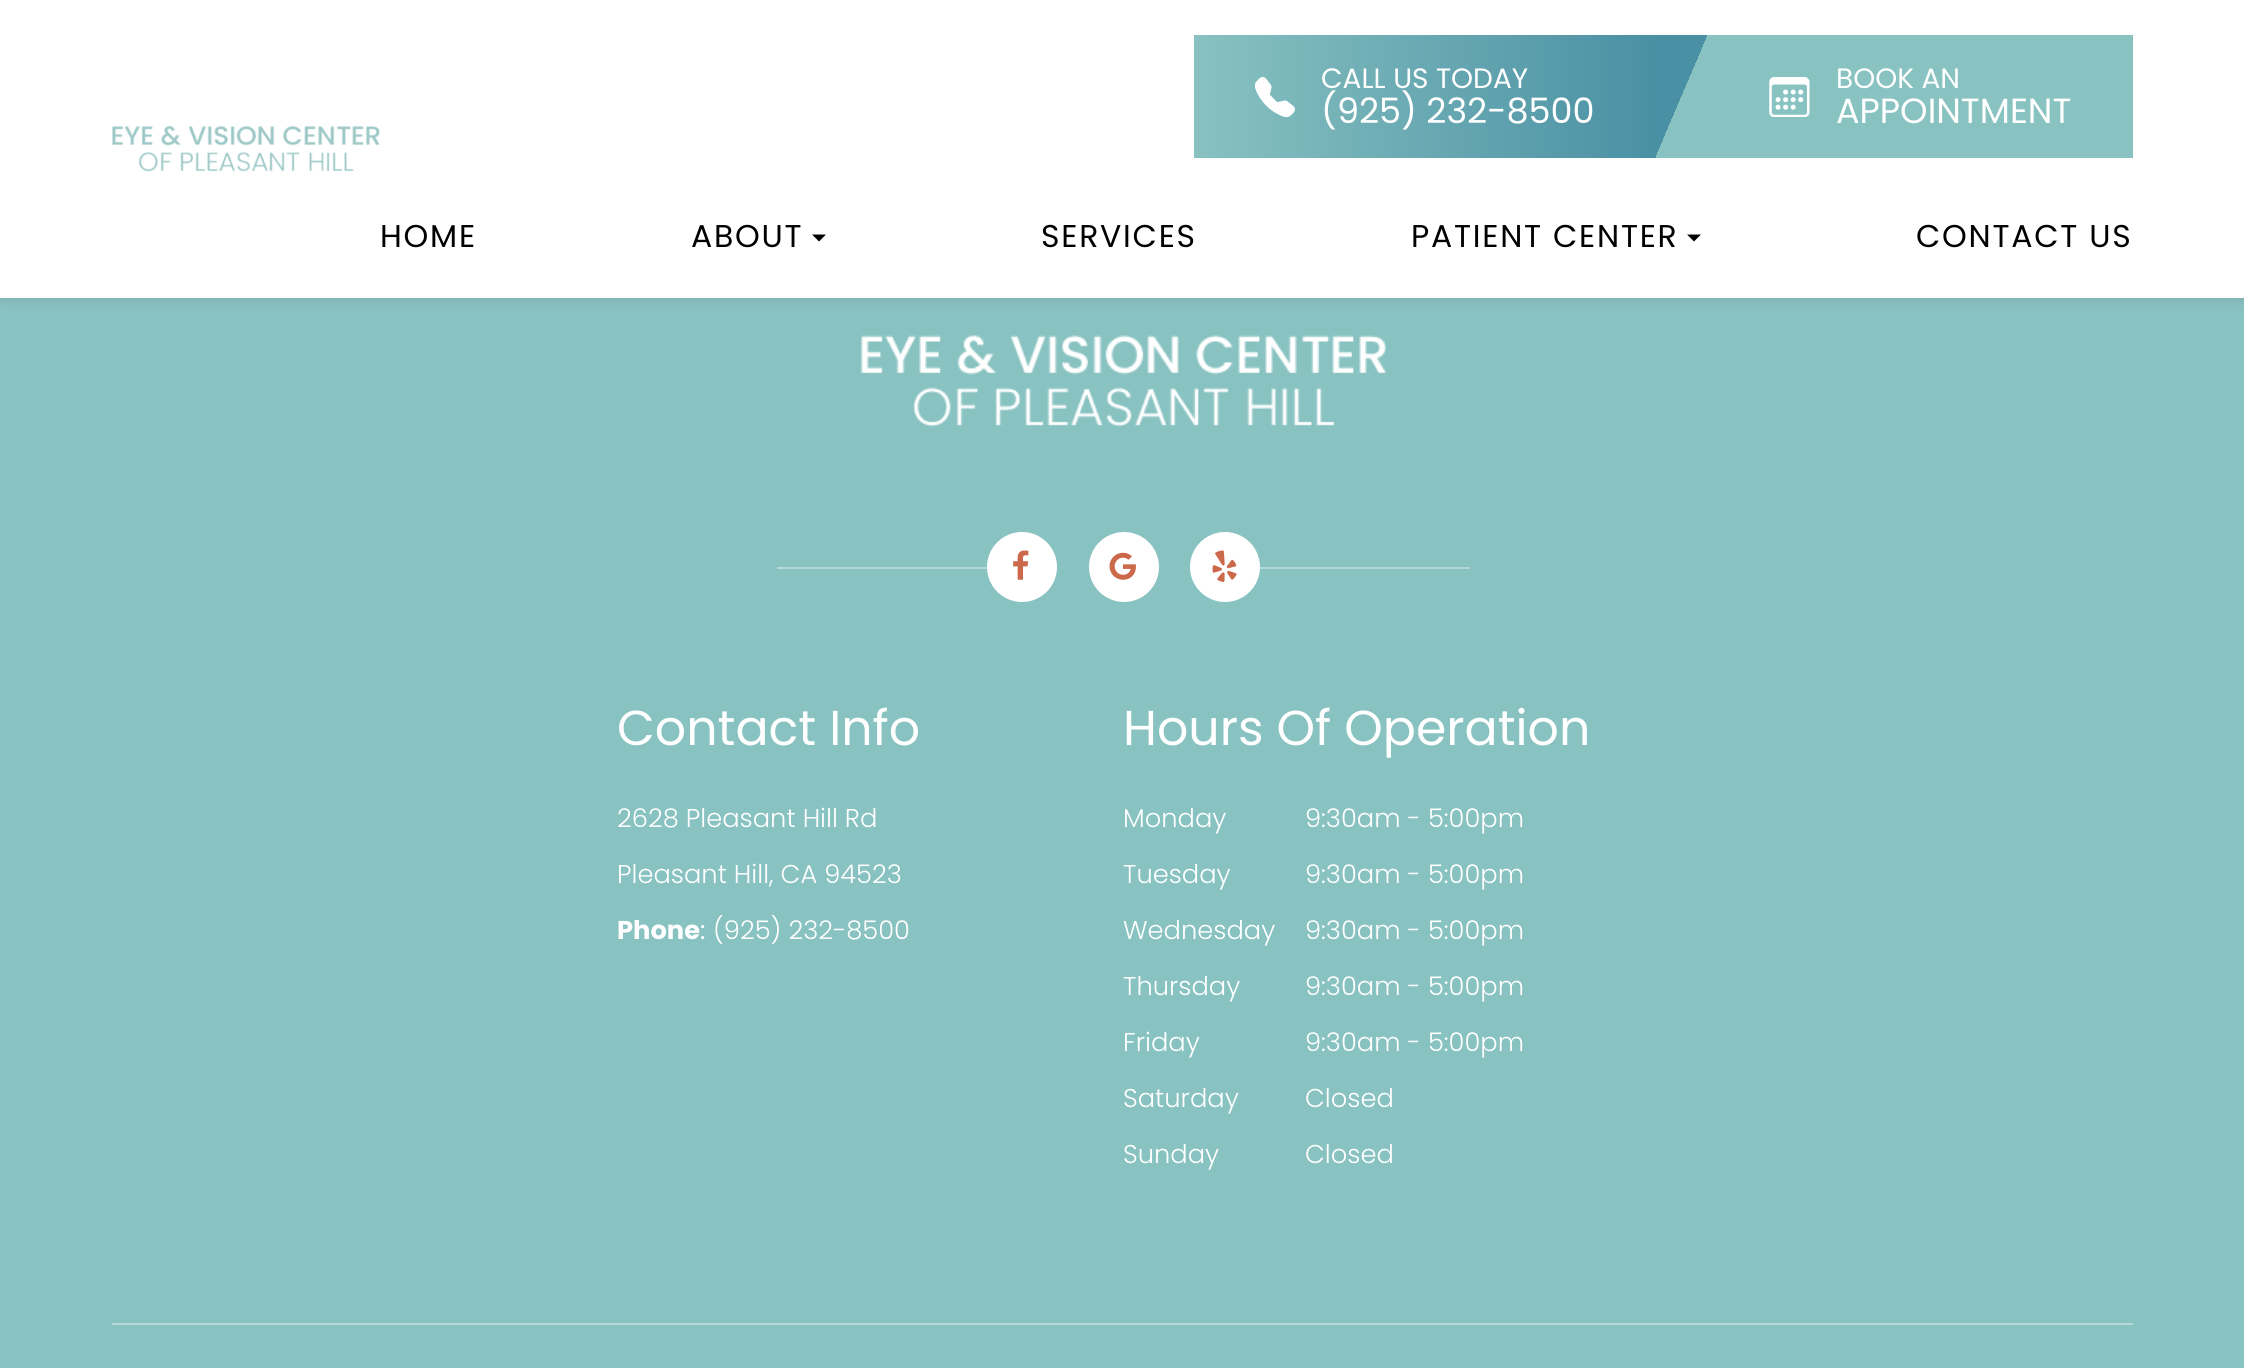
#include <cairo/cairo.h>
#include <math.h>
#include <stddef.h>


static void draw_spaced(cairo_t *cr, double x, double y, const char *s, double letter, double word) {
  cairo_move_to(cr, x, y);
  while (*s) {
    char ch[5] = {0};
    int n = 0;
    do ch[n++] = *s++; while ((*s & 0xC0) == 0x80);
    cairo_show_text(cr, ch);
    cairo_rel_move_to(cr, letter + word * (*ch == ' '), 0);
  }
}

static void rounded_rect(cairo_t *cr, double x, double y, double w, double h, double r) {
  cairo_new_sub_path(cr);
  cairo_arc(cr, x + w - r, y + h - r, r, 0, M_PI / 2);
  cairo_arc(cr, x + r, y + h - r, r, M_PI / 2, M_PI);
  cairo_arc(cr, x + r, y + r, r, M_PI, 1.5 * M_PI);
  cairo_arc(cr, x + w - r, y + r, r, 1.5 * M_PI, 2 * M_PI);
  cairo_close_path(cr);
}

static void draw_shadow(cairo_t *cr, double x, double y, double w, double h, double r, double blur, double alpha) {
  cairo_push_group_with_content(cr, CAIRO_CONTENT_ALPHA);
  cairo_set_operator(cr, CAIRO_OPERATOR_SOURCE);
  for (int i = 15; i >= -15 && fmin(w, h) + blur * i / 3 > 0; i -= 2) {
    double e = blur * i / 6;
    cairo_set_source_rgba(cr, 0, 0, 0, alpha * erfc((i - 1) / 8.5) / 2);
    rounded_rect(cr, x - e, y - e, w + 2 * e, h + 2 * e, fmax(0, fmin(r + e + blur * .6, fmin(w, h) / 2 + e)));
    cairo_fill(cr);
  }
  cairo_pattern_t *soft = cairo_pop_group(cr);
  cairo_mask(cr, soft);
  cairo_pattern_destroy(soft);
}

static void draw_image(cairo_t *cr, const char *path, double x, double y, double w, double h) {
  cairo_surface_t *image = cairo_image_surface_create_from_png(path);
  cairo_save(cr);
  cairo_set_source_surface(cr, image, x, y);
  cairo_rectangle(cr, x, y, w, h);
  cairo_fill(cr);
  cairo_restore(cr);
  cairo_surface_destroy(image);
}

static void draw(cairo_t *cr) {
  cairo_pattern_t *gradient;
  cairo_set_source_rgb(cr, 136 / 255.0, 194 / 255.0, 193 / 255.0);
  cairo_paint(cr);
  cairo_set_source_rgb(cr, 51 / 255.0, 51 / 255.0, 51 / 255.0);
  draw_shadow(cr, 0, 0, 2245, 298, 0, 6, 0.19);
  cairo_set_source_rgb(cr, 1, 1, 1);
  cairo_rectangle(cr, 0, 0, 2244, 298);
  cairo_fill(cr);
  draw_image(cr, "images/1.png", 112, 125, 268, 47);
  gradient = cairo_pattern_create_linear(1656, 96, 1194, 96);
  cairo_pattern_add_color_stop_rgba(gradient, 0, 74 / 255.0, 144 / 255.0, 164 / 255.0, 1);
  cairo_pattern_add_color_stop_rgba(gradient, 1, 136 / 255.0, 194 / 255.0, 193 / 255.0, 1);
  cairo_set_source(cr, gradient);
  cairo_pattern_destroy(gradient);
  cairo_rectangle(cr, 1194, 35, 462, 123);
  cairo_fill(cr);
  draw_image(cr, "images/2.png", 1255, 77, 40, 40);
  gradient = cairo_pattern_create_linear(1637, 77, 1726, 115);
  cairo_pattern_add_color_stop_rgba(gradient, 0.5, 74 / 255.0, 144 / 255.0, 164 / 255.0, 1);
  cairo_pattern_add_color_stop_rgba(gradient, 0.5, 136 / 255.0, 194 / 255.0, 193 / 255.0, 1);
  cairo_set_source(cr, gradient);
  cairo_pattern_destroy(gradient);
  cairo_rectangle(cr, 1656, 35, 52, 123);
  cairo_fill(cr);
  cairo_set_source_rgb(cr, 136 / 255.0, 194 / 255.0, 193 / 255.0);
  cairo_rectangle(cr, 1708, 35, 425, 123);
  cairo_fill(cr);
  draw_image(cr, "images/3.png", 1769, 77, 41, 40);
  cairo_set_source_rgb(cr, 0, 0, 0);
  cairo_new_path(cr);
  cairo_move_to(cr, 812, 234.5);
  cairo_line_to(cr, 826, 234.5);
  cairo_line_to(cr, 819, 241.5);
  cairo_close_path(cr);
  cairo_fill(cr);
  cairo_new_path(cr);
  cairo_move_to(cr, 1687, 234.5);
  cairo_line_to(cr, 1701, 234.5);
  cairo_line_to(cr, 1694, 241.5);
  cairo_close_path(cr);
  cairo_fill(cr);
  draw_image(cr, "images/4.png", 861, 335, 525, 92);
  cairo_set_source_rgb(cr, 179 / 255.0, 216 / 255.0, 215 / 255.0);
  cairo_rectangle(cr, 777, 567, 211, 2);
  cairo_fill(cr);
  cairo_set_source_rgb(cr, 1, 1, 1);
  cairo_arc(cr, 1022, 567, 35, 0, 2 * M_PI);
  cairo_fill(cr);
  draw_image(cr, "images/5.png", 1013, 550, 16, 30);
  cairo_arc(cr, 1124, 567, 35, 0, 2 * M_PI);
  cairo_fill(cr);
  draw_image(cr, "images/6.png", 1109, 552, 27, 28);
  cairo_arc(cr, 1225, 567, 35, 0, 2 * M_PI);
  cairo_fill(cr);
  draw_image(cr, "images/7.png", 1212, 550, 25, 32);
  cairo_set_source_rgba(cr, 1, 1, 1, 0.36);
  cairo_rectangle(cr, 1259, 567, 211, 2);
  cairo_fill(cr);
  cairo_set_source_rgb(cr, 179 / 255.0, 216 / 255.0, 215 / 255.0);
  cairo_rectangle(cr, 112, 1323, 2021, 2);
  cairo_fill(cr);
  cairo_select_font_face(cr, "Poppins", CAIRO_FONT_SLANT_NORMAL, CAIRO_FONT_WEIGHT_NORMAL);
  cairo_set_font_size(cr, 28);
  cairo_set_source_rgb(cr, 1, 1, 1);
  cairo_move_to(cr, 1321, 88);
  cairo_show_text(cr, "CALL US TODAY");
  cairo_set_font_size(cr, 35);
  cairo_move_to(cr, 1321, 123);
  cairo_show_text(cr, "(925) 232-8500");
  cairo_set_font_size(cr, 28);
  cairo_move_to(cr, 1836, 88);
  cairo_show_text(cr, "BOOK AN");
  cairo_set_font_size(cr, 35);
  cairo_move_to(cr, 1836, 123);
  cairo_show_text(cr, "APPOINTMENT");
  cairo_set_font_size(cr, 31.5);
  cairo_set_source_rgb(cr, 0, 0, 0);
  draw_spaced(cr, 380, 247, "HOME", 1.75, 0);
  draw_spaced(cr, 691, 247, "ABOUT", 1.75, 0);
  draw_spaced(cr, 1041, 247, "SERVICES", 1.75, 0);
  draw_spaced(cr, 1411, 247, "PATIENT CENTER", 1.75, 0);
  draw_spaced(cr, 1916, 247, "CONTACT US", 1.75, 0);
  cairo_set_font_size(cr, 49);
  cairo_set_source_rgb(cr, 1, 1, 1);
  cairo_move_to(cr, 617, 745);
  cairo_show_text(cr, "Contact Info");
  cairo_select_font_face(cr, "Poppins Light", CAIRO_FONT_SLANT_NORMAL, CAIRO_FONT_WEIGHT_NORMAL);
  cairo_set_font_size(cr, 25.75);
  cairo_move_to(cr, 617, 827);
  cairo_show_text(cr, "2628 Pleasant Hill Rd");
  cairo_move_to(cr, 617, 883);
  cairo_show_text(cr, "Pleasant Hill, CA 94523");
  cairo_select_font_face(cr, "Poppins", CAIRO_FONT_SLANT_NORMAL, CAIRO_FONT_WEIGHT_BOLD);
  cairo_move_to(cr, 617, 939);
  cairo_show_text(cr, "Phone");
  cairo_select_font_face(cr, "Poppins", CAIRO_FONT_SLANT_NORMAL, CAIRO_FONT_WEIGHT_NORMAL);
  cairo_move_to(cr, 700, 939);
  cairo_show_text(cr, ":");
  cairo_select_font_face(cr, "Poppins Light", CAIRO_FONT_SLANT_NORMAL, CAIRO_FONT_WEIGHT_NORMAL);
  cairo_move_to(cr, 713, 939);
  cairo_show_text(cr, "(925) 232-8500");
  cairo_select_font_face(cr, "Poppins", CAIRO_FONT_SLANT_NORMAL, CAIRO_FONT_WEIGHT_NORMAL);
  cairo_set_font_size(cr, 49);
  cairo_move_to(cr, 1123, 745);
  cairo_show_text(cr, "Hours Of Operation");
  cairo_select_font_face(cr, "Poppins Light", CAIRO_FONT_SLANT_NORMAL, CAIRO_FONT_WEIGHT_NORMAL);
  cairo_set_font_size(cr, 25.75);
  cairo_move_to(cr, 1123, 827);
  cairo_show_text(cr, "Monday");
  cairo_move_to(cr, 1305, 827);
  cairo_show_text(cr, "9:30am - 5:00pm");
  cairo_move_to(cr, 1123, 883);
  cairo_show_text(cr, "Tuesday");
  cairo_move_to(cr, 1305, 883);
  cairo_show_text(cr, "9:30am - 5:00pm");
  cairo_move_to(cr, 1123, 939);
  cairo_show_text(cr, "Wednesday");
  cairo_move_to(cr, 1305, 939);
  cairo_show_text(cr, "9:30am - 5:00pm");
  cairo_move_to(cr, 1123, 995);
  cairo_show_text(cr, "Thursday");
  cairo_move_to(cr, 1305, 995);
  cairo_show_text(cr, "9:30am - 5:00pm");
  cairo_move_to(cr, 1123, 1051);
  cairo_show_text(cr, "Friday");
  cairo_move_to(cr, 1305, 1051);
  cairo_show_text(cr, "9:30am - 5:00pm");
  cairo_move_to(cr, 1123, 1107);
  cairo_show_text(cr, "Saturday");
  cairo_move_to(cr, 1305, 1107);
  cairo_show_text(cr, "Closed");
  cairo_move_to(cr, 1123, 1163);
  cairo_show_text(cr, "Sunday");
  cairo_move_to(cr, 1305, 1163);
  cairo_show_text(cr, "Closed");
}

int main(void) {
  cairo_surface_t *surface = cairo_image_surface_create(CAIRO_FORMAT_RGB24, 2244, 1368);
  cairo_t *cr = cairo_create(surface);
  cairo_font_options_t *options = cairo_font_options_create();
  cairo_font_options_set_hint_metrics(options, CAIRO_HINT_METRICS_OFF);
  cairo_font_options_set_hint_style(options, CAIRO_HINT_STYLE_NONE);
  cairo_set_font_options(cr, options);
  cairo_set_miter_limit(cr, 4);
  draw(cr);
  cairo_surface_write_to_png(surface, "out.png");
  cairo_font_options_destroy(options);
  cairo_destroy(cr);
  cairo_surface_destroy(surface);
  return 0;
}
